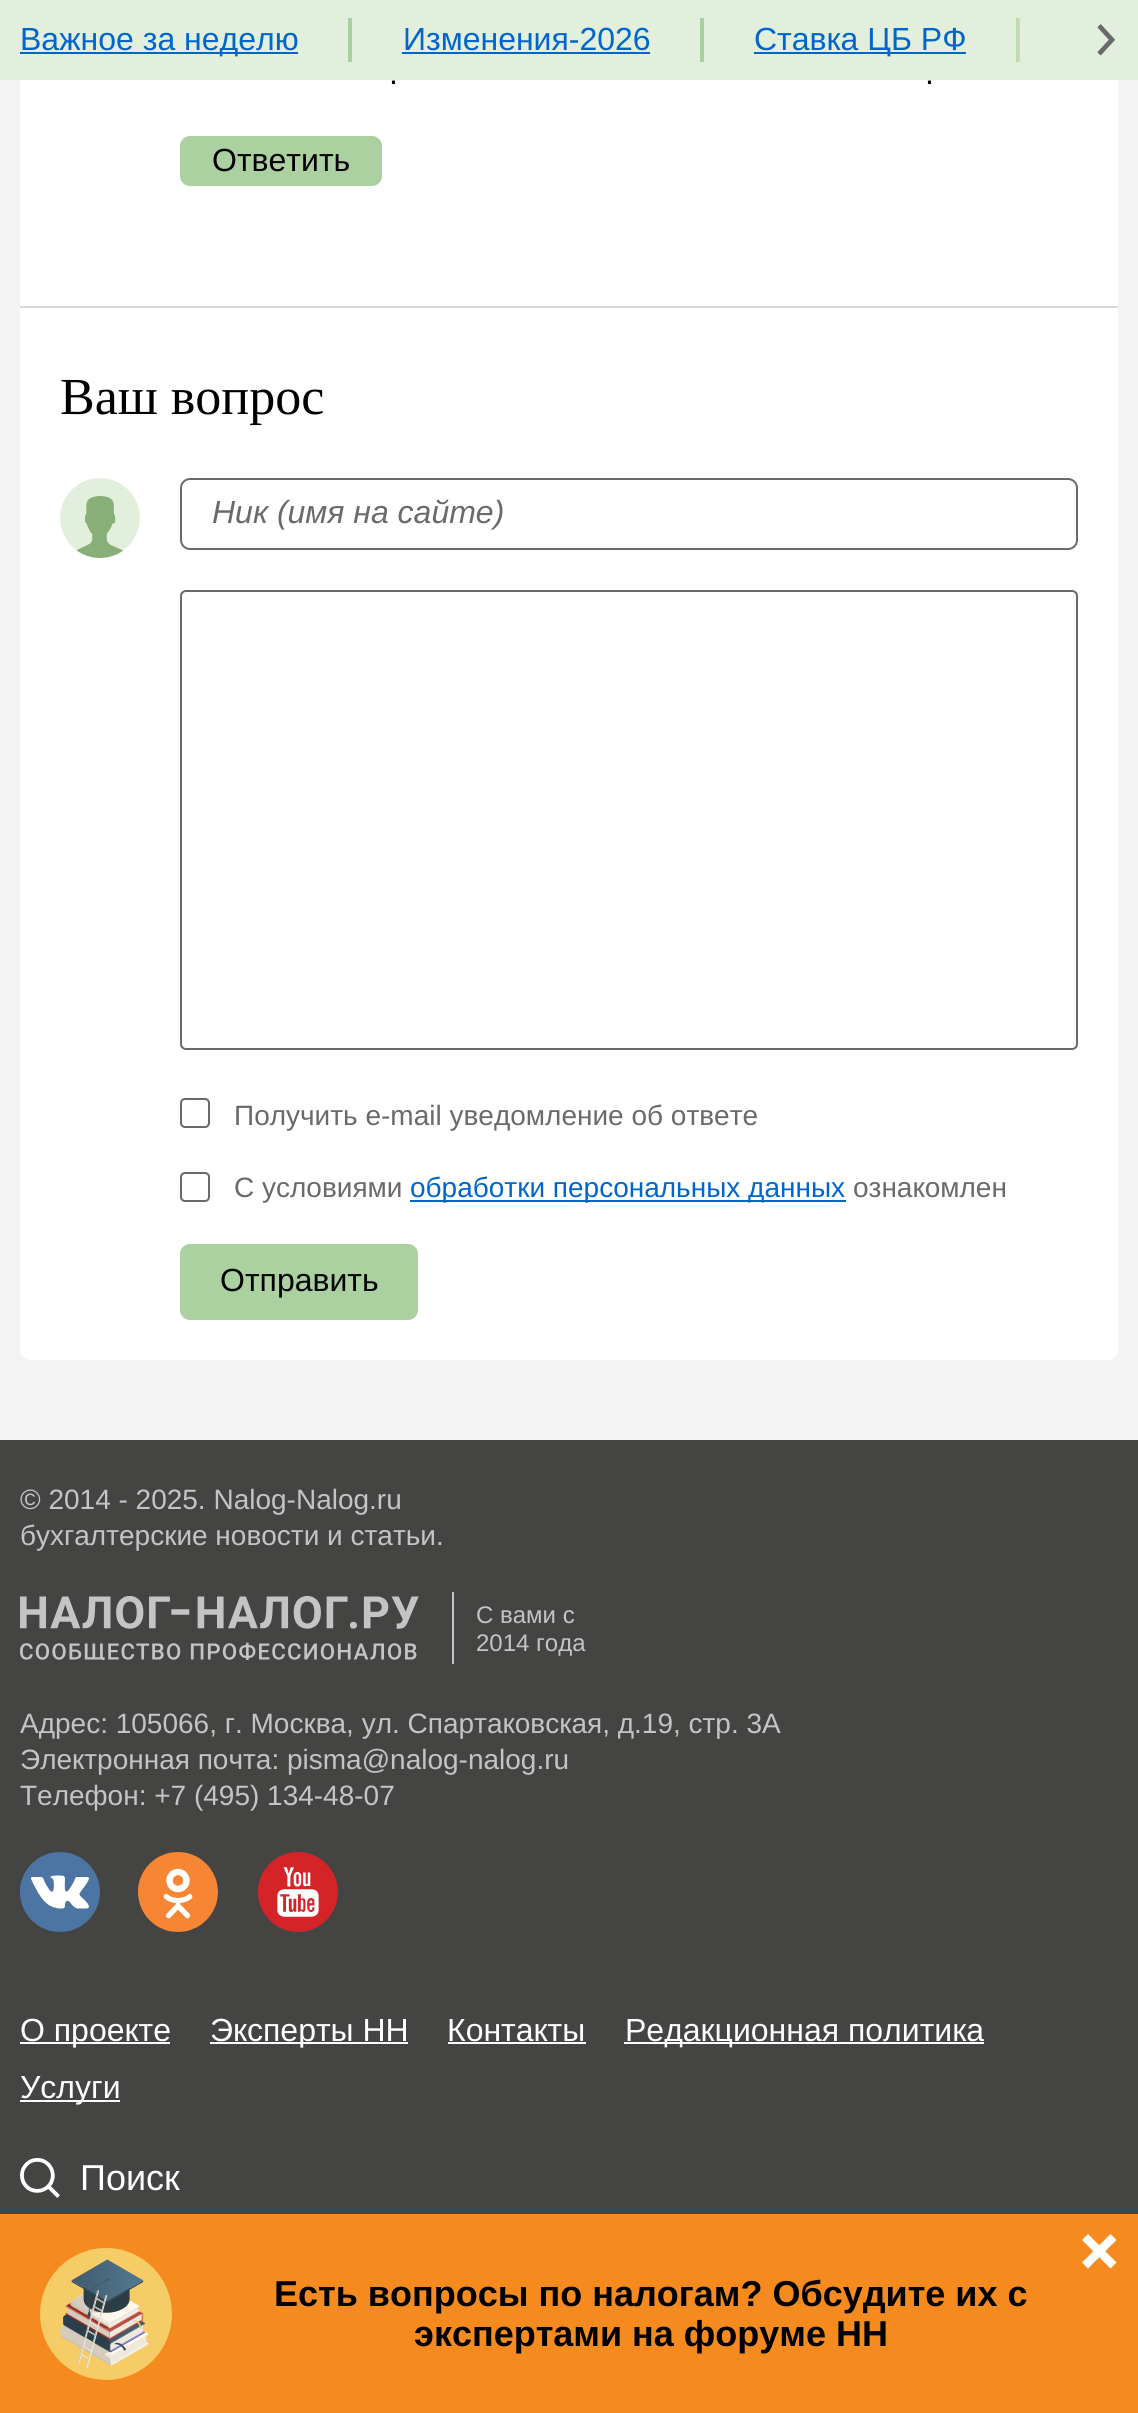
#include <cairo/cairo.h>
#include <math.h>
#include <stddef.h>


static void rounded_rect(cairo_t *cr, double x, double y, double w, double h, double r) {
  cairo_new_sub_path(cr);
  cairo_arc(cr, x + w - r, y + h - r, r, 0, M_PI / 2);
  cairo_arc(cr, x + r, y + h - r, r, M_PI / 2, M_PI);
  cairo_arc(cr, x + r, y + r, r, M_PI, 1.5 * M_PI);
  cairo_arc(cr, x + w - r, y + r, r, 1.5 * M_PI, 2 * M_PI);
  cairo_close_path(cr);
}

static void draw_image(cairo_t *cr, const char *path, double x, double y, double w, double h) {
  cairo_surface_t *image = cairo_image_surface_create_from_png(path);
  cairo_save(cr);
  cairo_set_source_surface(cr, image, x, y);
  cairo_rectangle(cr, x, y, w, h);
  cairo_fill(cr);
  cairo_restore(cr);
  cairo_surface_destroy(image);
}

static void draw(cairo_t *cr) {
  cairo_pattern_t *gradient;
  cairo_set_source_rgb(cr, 243 / 255.0, 243 / 255.0, 243 / 255.0);
  cairo_paint(cr);
  cairo_set_source_rgb(cr, 1, 1, 1);
  rounded_rect(cr, 20, -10, 1098, 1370, 10);
  cairo_fill(cr);
  cairo_set_source_rgb(cr, 225 / 255.0, 239 / 255.0, 220 / 255.0);
  cairo_rectangle(cr, 0, 0, 1138, 80);
  cairo_fill(cr);
  cairo_set_source_rgb(cr, 172 / 255.0, 209 / 255.0, 160 / 255.0);
  cairo_rectangle(cr, 348, 18, 4, 44);
  cairo_fill(cr);
  cairo_set_source_rgb(cr, 0, 102 / 255.0, 204 / 255.0);
  cairo_rectangle(cr, 20, 52, 278, 2);
  cairo_fill(cr);
  cairo_set_source_rgb(cr, 172 / 255.0, 209 / 255.0, 160 / 255.0);
  cairo_rectangle(cr, 700, 18, 4, 44);
  cairo_fill(cr);
  cairo_set_source_rgb(cr, 0, 102 / 255.0, 204 / 255.0);
  cairo_rectangle(cr, 402, 52, 248, 2);
  cairo_fill(cr);
  cairo_set_source_rgb(cr, 172 / 255.0, 209 / 255.0, 160 / 255.0);
  cairo_rectangle(cr, 1016, 18, 4, 44);
  cairo_fill(cr);
  cairo_set_source_rgb(cr, 0, 102 / 255.0, 204 / 255.0);
  cairo_rectangle(cr, 754, 52, 212, 2);
  cairo_fill(cr);
  gradient = cairo_pattern_create_linear(1090, 40, 1010, 40);
  cairo_pattern_add_color_stop_rgba(gradient, 0.77, 225 / 255.0, 239 / 255.0, 220 / 255.0, 1);
  cairo_pattern_add_color_stop_rgba(gradient, 0.97, 225 / 255.0, 239 / 255.0, 220 / 255.0, 0);
  cairo_set_source(cr, gradient);
  cairo_pattern_destroy(gradient);
  cairo_rectangle(cr, 1016, 18, 4, 44);
  cairo_fill(cr);
  draw_image(cr, "images/1.png", 1097, 24, 18, 32);
  cairo_set_source_rgb(cr, 218 / 255.0, 218 / 255.0, 218 / 255.0);
  cairo_rectangle(cr, 20, 306, 1098, 2);
  cairo_fill(cr);
  cairo_set_source_rgb(cr, 172 / 255.0, 209 / 255.0, 160 / 255.0);
  rounded_rect(cr, 180, 136, 202, 50, 10);
  cairo_fill(cr);
  draw_image(cr, "images/2.png", 60, 478, 80, 80);
  rounded_rect(cr, 181, 479, 896, 70, 9);
  cairo_set_source_rgb(cr, 106 / 255.0, 106 / 255.0, 106 / 255.0);
  cairo_stroke(cr);
  rounded_rect(cr, 181, 591, 896, 458, 5);
  cairo_stroke(cr);
  draw_image(cr, "images/3.png", 180, 1098, 30, 30);
  draw_image(cr, "images/3.png", 180, 1172, 30, 30);
  cairo_set_source_rgb(cr, 0, 102 / 255.0, 204 / 255.0);
  cairo_rectangle(cr, 410, 1200, 436, 2);
  cairo_fill(cr);
  cairo_set_source_rgb(cr, 172 / 255.0, 209 / 255.0, 160 / 255.0);
  rounded_rect(cr, 180, 1244, 238, 76, 10);
  cairo_fill(cr);
  cairo_set_source_rgb(cr, 68 / 255.0, 68 / 255.0, 67 / 255.0);
  cairo_rectangle(cr, 0, 1440, 1138, 774);
  cairo_fill(cr);
  draw_image(cr, "images/4.png", 20, 1596, 399, 64);
  cairo_set_source_rgb(cr, 196 / 255.0, 196 / 255.0, 196 / 255.0);
  cairo_rectangle(cr, 452, 1592, 2, 72);
  cairo_fill(cr);
  cairo_set_source_rgb(cr, 1, 1, 1);
  cairo_arc(cr, 60, 1892, 38, 0, 2 * M_PI);
  cairo_fill(cr);
  draw_image(cr, "images/5.png", 20, 1852, 80, 80);
  cairo_arc(cr, 178, 1892, 38, 0, 2 * M_PI);
  cairo_fill(cr);
  draw_image(cr, "images/6.png", 138, 1852, 80, 80);
  cairo_arc(cr, 298, 1892, 38, 0, 2 * M_PI);
  cairo_fill(cr);
  draw_image(cr, "images/7.png", 258, 1852, 80, 80);
  cairo_rectangle(cr, 20, 2042, 150, 2);
  cairo_fill(cr);
  cairo_rectangle(cr, 210, 2042, 198, 2);
  cairo_fill(cr);
  cairo_rectangle(cr, 448, 2042, 138, 2);
  cairo_fill(cr);
  cairo_rectangle(cr, 624, 2042, 360, 2);
  cairo_fill(cr);
  cairo_rectangle(cr, 20, 2100, 100, 2);
  cairo_fill(cr);
  draw_image(cr, "images/8.png", 20, 2158, 40, 40);
  cairo_set_source_rgb(cr, 245 / 255.0, 138 / 255.0, 31 / 255.0);
  cairo_rectangle(cr, 0, 2214, 1138, 199);
  cairo_fill(cr);
  cairo_set_source_rgb(cr, 1, 1, 1);
  cairo_new_path(cr);
  cairo_move_to(cr, 1082, 2240);
  cairo_line_to(cr, 1088, 2234);
  cairo_line_to(cr, 1116.5, 2262.5);
  cairo_line_to(cr, 1110.5, 2268.5);
  cairo_close_path(cr);
  cairo_fill(cr);
  cairo_new_path(cr);
  cairo_move_to(cr, 1110.5, 2234);
  cairo_line_to(cr, 1116.5, 2240);
  cairo_line_to(cr, 1088, 2268.5);
  cairo_line_to(cr, 1082, 2262.5);
  cairo_close_path(cr);
  cairo_fill(cr);
  draw_image(cr, "images/9.png", 40, 2248, 132, 132);
  cairo_select_font_face(cr, "Liberation Sans", CAIRO_FONT_SLANT_NORMAL, CAIRO_FONT_WEIGHT_NORMAL);
  cairo_set_font_size(cr, 32);
  cairo_set_source_rgb(cr, 0, 102 / 255.0, 204 / 255.0);
  cairo_move_to(cr, 20, 50);
  cairo_show_text(cr, "Важное за неделю");
  cairo_move_to(cr, 403, 50);
  cairo_show_text(cr, "Изменения-2026");
  cairo_move_to(cr, 754, 50);
  cairo_show_text(cr, "Ставка ЦБ РФ");
  cairo_set_source_rgb(cr, 0, 0, 0);
  cairo_move_to(cr, 389, 84);
  cairo_show_text(cr, ".");
  cairo_move_to(cr, 925, 84);
  cairo_show_text(cr, ".");
  cairo_move_to(cr, 212, 171);
  cairo_show_text(cr, "Ответить");
  cairo_select_font_face(cr, "Liberation Serif", CAIRO_FONT_SLANT_NORMAL, CAIRO_FONT_WEIGHT_NORMAL);
  cairo_set_font_size(cr, 52);
  cairo_move_to(cr, 60, 414);
  cairo_show_text(cr, "Ваш вопрос");
  cairo_select_font_face(cr, "Liberation Sans", CAIRO_FONT_SLANT_ITALIC, CAIRO_FONT_WEIGHT_NORMAL);
  cairo_set_font_size(cr, 32);
  cairo_set_source_rgb(cr, 106 / 255.0, 106 / 255.0, 106 / 255.0);
  cairo_move_to(cr, 212, 523);
  cairo_show_text(cr, "Ник (имя на сайте)");
  cairo_select_font_face(cr, "Liberation Sans", CAIRO_FONT_SLANT_NORMAL, CAIRO_FONT_WEIGHT_NORMAL);
  cairo_set_font_size(cr, 28);
  cairo_move_to(cr, 234, 1125);
  cairo_show_text(cr, "Получить e-mail уведомление об ответе");
  cairo_move_to(cr, 234, 1197);
  cairo_show_text(cr, "С условиями");
  cairo_set_source_rgb(cr, 0, 102 / 255.0, 204 / 255.0);
  cairo_move_to(cr, 410, 1197);
  cairo_show_text(cr, "обработки персональных данных");
  cairo_set_source_rgb(cr, 106 / 255.0, 106 / 255.0, 106 / 255.0);
  cairo_move_to(cr, 853, 1197);
  cairo_show_text(cr, "ознакомлен");
  cairo_set_font_size(cr, 32);
  cairo_set_source_rgb(cr, 0, 0, 0);
  cairo_move_to(cr, 220, 1291);
  cairo_show_text(cr, "Отправить");
  cairo_set_font_size(cr, 28);
  cairo_set_source_rgb(cr, 196 / 255.0, 196 / 255.0, 196 / 255.0);
  cairo_move_to(cr, 20, 1509);
  cairo_show_text(cr, "© 2014 - 2025. Nalog-Nalog.ru");
  cairo_move_to(cr, 20, 1545);
  cairo_show_text(cr, "бухгалтерские новости и статьи.");
  cairo_set_font_size(cr, 24);
  cairo_move_to(cr, 476, 1623);
  cairo_show_text(cr, "С вами с");
  cairo_move_to(cr, 476, 1651);
  cairo_show_text(cr, "2014 года");
  cairo_set_font_size(cr, 28);
  cairo_move_to(cr, 20, 1733);
  cairo_show_text(cr, "Адрес: 105066, г. Москва, ул. Спартаковская, д.19, стр. 3А");
  cairo_move_to(cr, 20, 1769);
  cairo_show_text(cr, "Электронная почта: pisma@nalog-nalog.ru");
  cairo_move_to(cr, 20, 1805);
  cairo_show_text(cr, "Телефон: +7 (495) 134-48-07");
  cairo_set_font_size(cr, 32);
  cairo_set_source_rgb(cr, 1, 1, 1);
  cairo_move_to(cr, 20, 2041);
  cairo_show_text(cr, "О проекте");
  cairo_move_to(cr, 210, 2041);
  cairo_show_text(cr, "Эксперты НН");
  cairo_move_to(cr, 447, 2041);
  cairo_show_text(cr, "Контакты");
  cairo_move_to(cr, 625, 2041);
  cairo_show_text(cr, "Редакционная политика");
  cairo_move_to(cr, 20, 2098);
  cairo_show_text(cr, "Услуги");
  cairo_set_font_size(cr, 36);
  cairo_move_to(cr, 80, 2190);
  cairo_show_text(cr, "Поиск");
  cairo_select_font_face(cr, "Liberation Sans", CAIRO_FONT_SLANT_NORMAL, CAIRO_FONT_WEIGHT_BOLD);
  cairo_set_source_rgb(cr, 0, 0, 0);
  cairo_move_to(cr, 274, 2306);
  cairo_show_text(cr, "Есть вопросы по налогам? Обсудите их с");
  cairo_move_to(cr, 414, 2346);
  cairo_show_text(cr, "экспертами на форуме НН");
}

int main(void) {
  cairo_surface_t *surface = cairo_image_surface_create(CAIRO_FORMAT_RGB24, 1138, 2413);
  cairo_t *cr = cairo_create(surface);
  cairo_font_options_t *options = cairo_font_options_create();
  cairo_font_options_set_hint_metrics(options, CAIRO_HINT_METRICS_OFF);
  cairo_font_options_set_hint_style(options, CAIRO_HINT_STYLE_NONE);
  cairo_set_font_options(cr, options);
  cairo_set_miter_limit(cr, 4);
  draw(cr);
  cairo_surface_write_to_png(surface, "out.png");
  cairo_font_options_destroy(options);
  cairo_destroy(cr);
  cairo_surface_destroy(surface);
  return 0;
}
